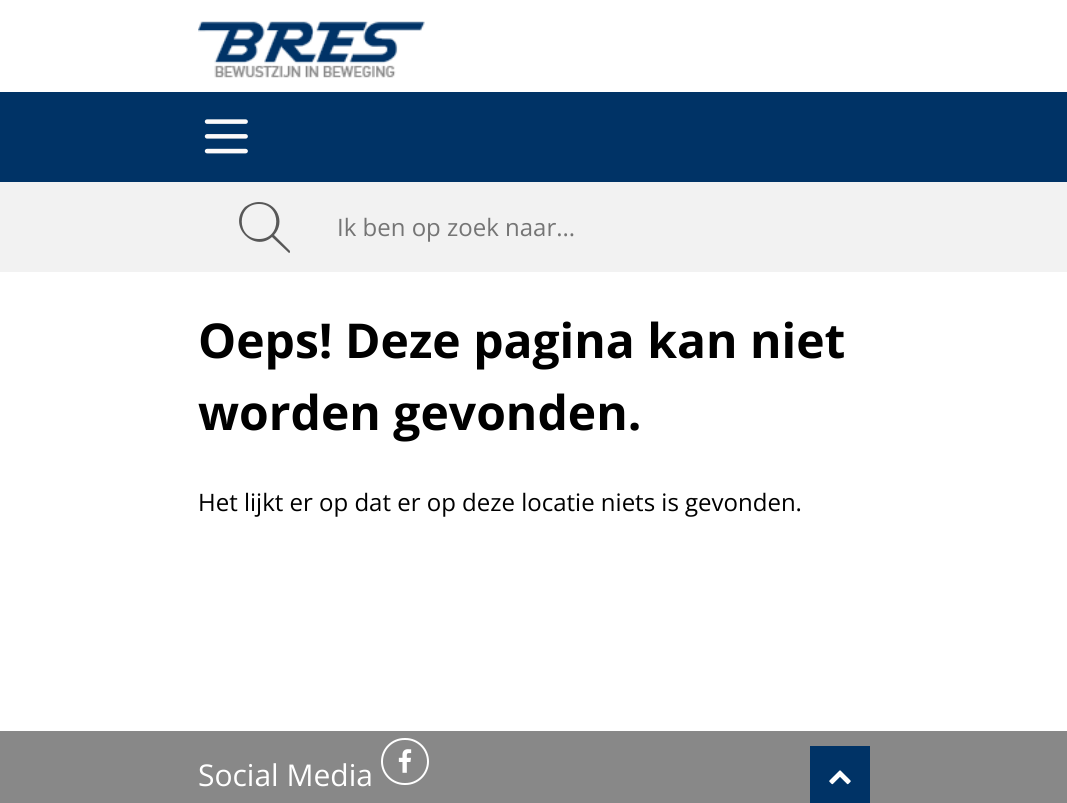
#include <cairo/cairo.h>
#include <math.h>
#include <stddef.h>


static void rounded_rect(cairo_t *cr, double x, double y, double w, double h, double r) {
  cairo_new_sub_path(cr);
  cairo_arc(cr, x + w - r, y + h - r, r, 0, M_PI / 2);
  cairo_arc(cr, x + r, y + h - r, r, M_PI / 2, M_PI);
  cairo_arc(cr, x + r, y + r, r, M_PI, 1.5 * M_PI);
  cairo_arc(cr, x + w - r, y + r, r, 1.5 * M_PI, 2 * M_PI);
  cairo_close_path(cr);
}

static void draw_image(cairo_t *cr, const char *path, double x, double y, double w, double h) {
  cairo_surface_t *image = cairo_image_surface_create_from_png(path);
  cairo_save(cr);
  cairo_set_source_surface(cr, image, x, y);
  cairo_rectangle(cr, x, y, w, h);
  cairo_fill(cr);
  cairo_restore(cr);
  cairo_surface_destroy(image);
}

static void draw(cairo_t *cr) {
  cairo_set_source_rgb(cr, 1, 1, 1);
  cairo_paint(cr);
  draw_image(cr, "images/1.png", 198, 21, 227, 57);
  cairo_set_source_rgb(cr, 0, 51 / 255.0, 102 / 255.0);
  cairo_rectangle(cr, 0, 92, 1067, 90);
  cairo_fill(cr);
  draw_image(cr, "images/2.png", 204, 119, 44, 35);
  cairo_set_source_rgb(cr, 242 / 255.0, 242 / 255.0, 242 / 255.0);
  cairo_rectangle(cr, 0, 182, 1067, 90);
  cairo_fill(cr);
  cairo_set_source_rgb(cr, 88 / 255.0, 88 / 255.0, 88 / 255.0);
  cairo_new_path(cr);
  cairo_move_to(cr, 259, 202);
  cairo_curve_to(cr, 254, 202, 249, 204, 245, 207);
  cairo_curve_to(cr, 227, 226, 254, 253, 272, 237);
  cairo_line_to(cr, 289, 253);
  cairo_curve_to(cr, 290, 253, 290, 252, 290, 251);
  cairo_line_to(cr, 274, 235);
  cairo_curve_to(cr, 286, 222, 277, 202, 259, 202);
  cairo_close_path(cr);
  cairo_move_to(cr, 259, 204);
  cairo_curve_to(cr, 282, 204, 282, 239, 259, 239);
  cairo_curve_to(cr, 236, 239, 236, 204, 259, 204);
  cairo_close_path(cr);
  cairo_fill(cr);
  cairo_set_source_rgb(cr, 136 / 255.0, 136 / 255.0, 136 / 255.0);
  cairo_rectangle(cr, 0, 731, 1067, 72);
  cairo_fill(cr);
  rounded_rect(cr, 382, 739, 46, 45, 22.5);
  cairo_set_source_rgb(cr, 1, 1, 1);
  cairo_stroke(cr);
  draw_image(cr, "images/3.png", 398, 749, 14, 24);
  cairo_set_source_rgb(cr, 0, 51 / 255.0, 102 / 255.0);
  cairo_rectangle(cr, 810, 746, 60, 57);
  cairo_fill(cr);
  draw_image(cr, "images/4.png", 829, 770, 22, 15);
  cairo_select_font_face(cr, "Open Sans", CAIRO_FONT_SLANT_NORMAL, CAIRO_FONT_WEIGHT_NORMAL);
  cairo_set_font_size(cr, 24);
  cairo_set_source_rgb(cr, 117 / 255.0, 117 / 255.0, 117 / 255.0);
  cairo_move_to(cr, 337, 236);
  cairo_show_text(cr, "Ik ben op zoek naar...");
  cairo_select_font_face(cr, "Open Sans", CAIRO_FONT_SLANT_NORMAL, CAIRO_FONT_WEIGHT_BOLD);
  cairo_set_font_size(cr, 48);
  cairo_set_source_rgb(cr, 0, 0, 0);
  cairo_move_to(cr, 198, 358);
  cairo_show_text(cr, "Oeps! Deze pagina kan niet");
  cairo_move_to(cr, 198, 430);
  cairo_show_text(cr, "worden gevonden.");
  cairo_select_font_face(cr, "Open Sans", CAIRO_FONT_SLANT_NORMAL, CAIRO_FONT_WEIGHT_NORMAL);
  cairo_set_font_size(cr, 24);
  cairo_move_to(cr, 198, 511);
  cairo_show_text(cr, "Het lijkt er op dat er op deze locatie niets is gevonden.");
  cairo_set_font_size(cr, 30);
  cairo_set_source_rgb(cr, 1, 1, 1);
  cairo_move_to(cr, 198, 786);
  cairo_show_text(cr, "Social Media");
}

int main(void) {
  cairo_surface_t *surface = cairo_image_surface_create(CAIRO_FORMAT_RGB24, 1067, 803);
  cairo_t *cr = cairo_create(surface);
  cairo_font_options_t *options = cairo_font_options_create();
  cairo_font_options_set_hint_metrics(options, CAIRO_HINT_METRICS_OFF);
  cairo_font_options_set_hint_style(options, CAIRO_HINT_STYLE_NONE);
  cairo_set_font_options(cr, options);
  cairo_set_miter_limit(cr, 4);
  draw(cr);
  cairo_surface_write_to_png(surface, "out.png");
  cairo_font_options_destroy(options);
  cairo_destroy(cr);
  cairo_surface_destroy(surface);
  return 0;
}
